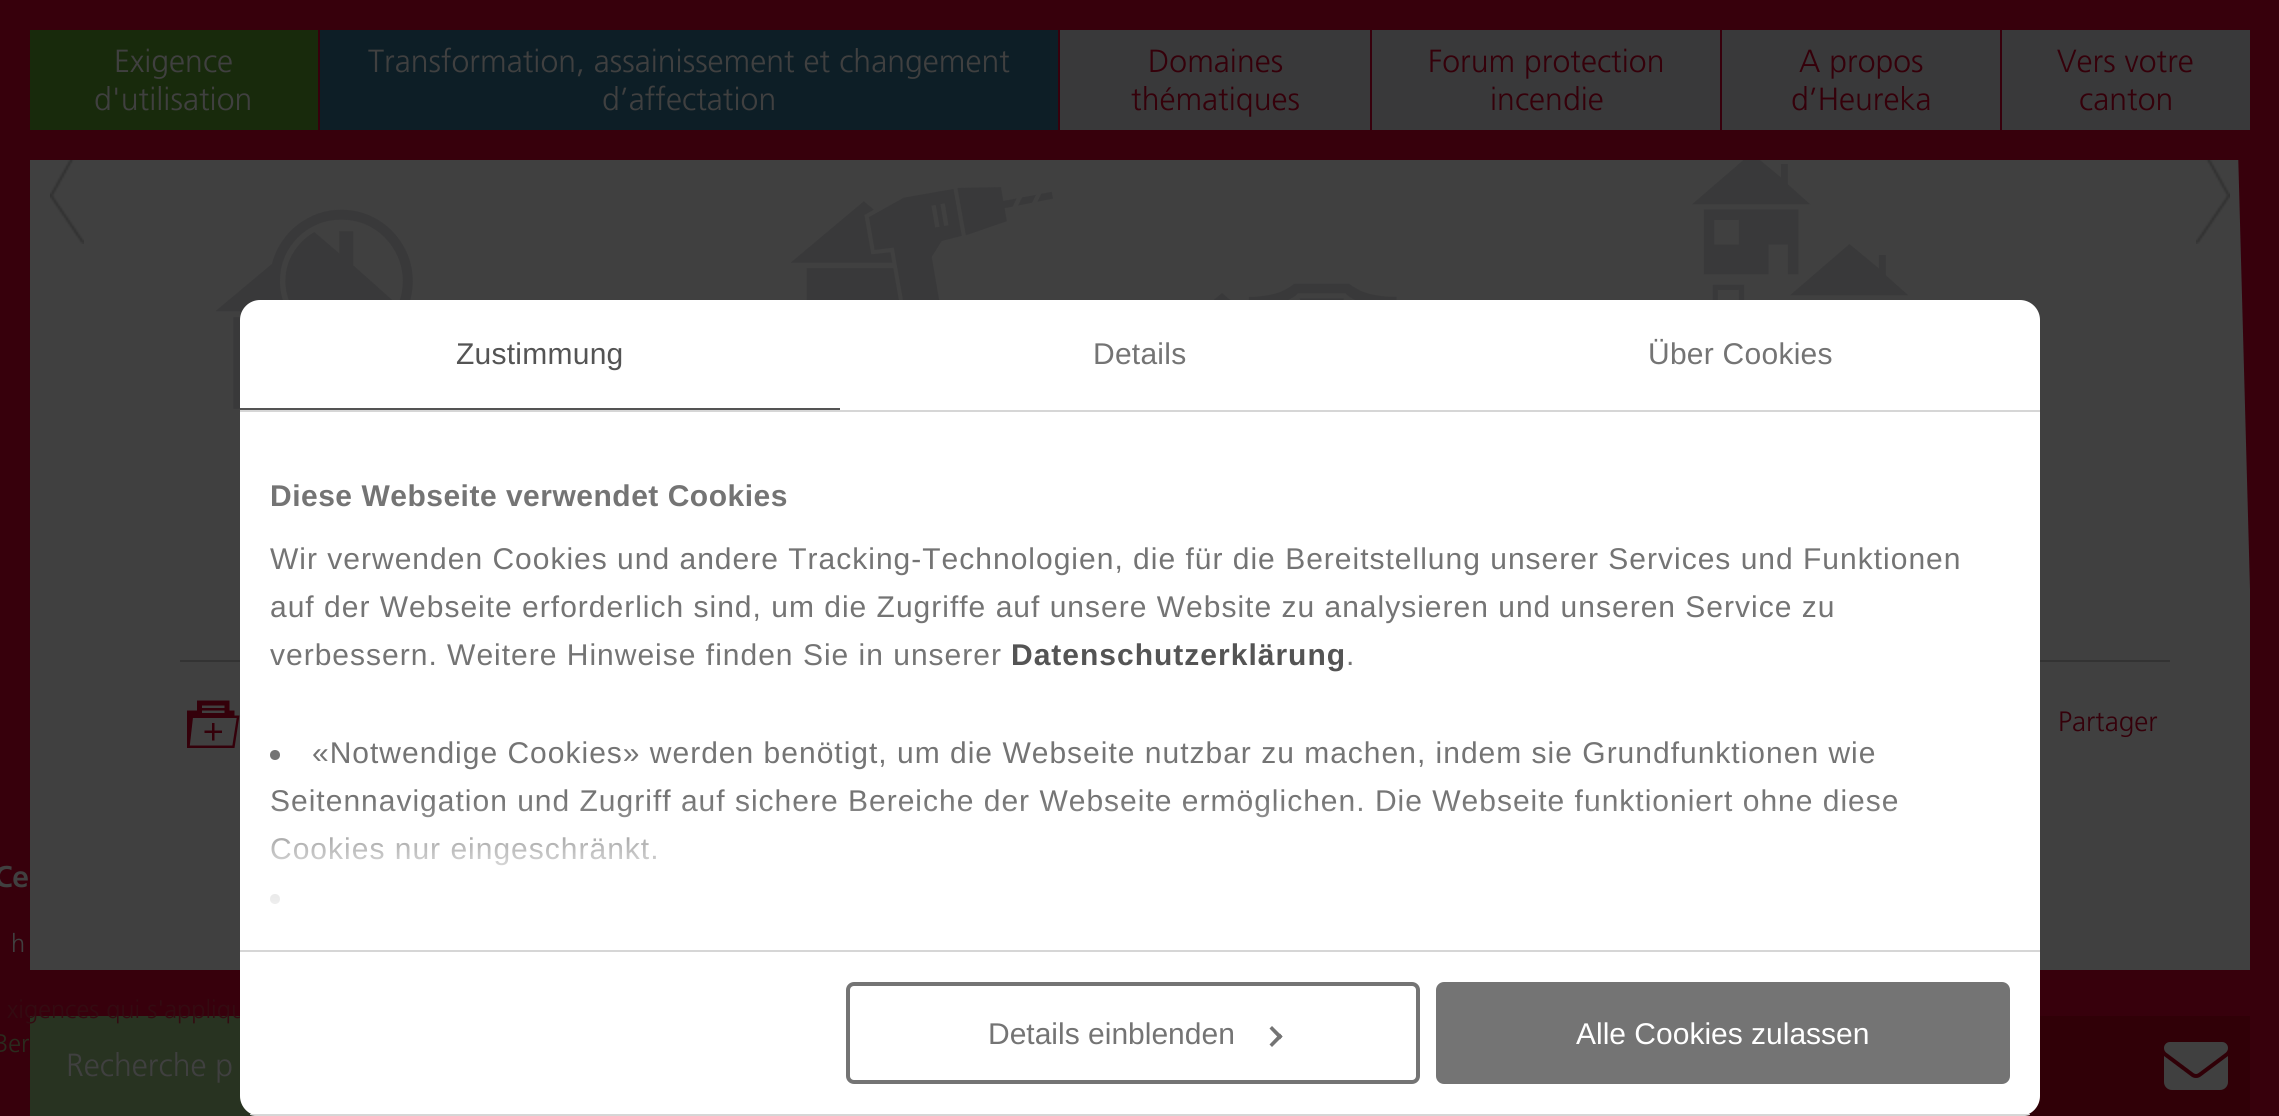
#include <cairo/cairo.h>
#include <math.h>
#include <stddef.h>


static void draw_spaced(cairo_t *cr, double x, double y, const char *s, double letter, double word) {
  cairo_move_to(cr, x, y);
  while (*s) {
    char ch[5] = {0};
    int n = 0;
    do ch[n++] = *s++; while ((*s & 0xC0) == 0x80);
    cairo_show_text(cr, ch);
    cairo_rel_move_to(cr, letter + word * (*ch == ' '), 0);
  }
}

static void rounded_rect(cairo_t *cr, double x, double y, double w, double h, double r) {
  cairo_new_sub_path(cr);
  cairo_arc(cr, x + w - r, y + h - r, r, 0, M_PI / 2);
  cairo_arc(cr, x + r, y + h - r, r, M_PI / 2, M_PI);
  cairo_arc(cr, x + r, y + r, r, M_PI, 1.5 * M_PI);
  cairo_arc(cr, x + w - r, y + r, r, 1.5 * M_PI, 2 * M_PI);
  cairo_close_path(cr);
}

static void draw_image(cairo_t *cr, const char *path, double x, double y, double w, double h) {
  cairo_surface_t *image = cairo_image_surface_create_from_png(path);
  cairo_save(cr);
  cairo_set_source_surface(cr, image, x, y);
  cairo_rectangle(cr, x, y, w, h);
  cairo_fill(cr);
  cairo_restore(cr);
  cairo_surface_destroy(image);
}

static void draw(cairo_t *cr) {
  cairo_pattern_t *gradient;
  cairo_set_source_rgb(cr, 55 / 255.0, 0, 12 / 255.0);
  cairo_paint(cr);
  cairo_set_source_rgb(cr, 24 / 255.0, 42 / 255.0, 12 / 255.0);
  cairo_rectangle(cr, 30, 30, 288, 100);
  cairo_fill(cr);
  cairo_set_source_rgb(cr, 13 / 255.0, 30 / 255.0, 38 / 255.0);
  cairo_rectangle(cr, 320, 30, 738, 100);
  cairo_fill(cr);
  cairo_set_source_rgb(cr, 57 / 255.0, 57 / 255.0, 58 / 255.0);
  cairo_rectangle(cr, 1060, 30, 310, 100);
  cairo_fill(cr);
  cairo_rectangle(cr, 1372, 30, 348, 100);
  cairo_fill(cr);
  cairo_rectangle(cr, 1722, 30, 278, 100);
  cairo_fill(cr);
  cairo_set_source_rgb(cr, 64 / 255.0, 64 / 255.0, 64 / 255.0);
  cairo_rectangle(cr, 30, 160, 2220, 500);
  cairo_fill(cr);
  cairo_set_source_rgb(cr, 55 / 255.0, 0, 12 / 255.0);
  cairo_new_path(cr);
  cairo_move_to(cr, 2252, 663);
  cairo_line_to(cr, 2252, -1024);
  cairo_line_to(cr, 2206, -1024);
  cairo_close_path(cr);
  cairo_fill(cr);
  cairo_set_source_rgb(cr, 57 / 255.0, 57 / 255.0, 58 / 255.0);
  cairo_rectangle(cr, 2002, 30, 248, 100);
  cairo_fill(cr);
  cairo_set_source_rgb(cr, 40 / 255.0, 51 / 255.0, 33 / 255.0);
  cairo_rectangle(cr, 30, 1016, 226, 100);
  cairo_fill(cr);
  cairo_set_source_rgb(cr, 48 / 255.0, 0, 7 / 255.0);
  cairo_rectangle(cr, 2024, 1016, 226, 100);
  cairo_fill(cr);
  draw_image(cr, "images/1.png", 2164, 1042, 64, 48);
  draw_image(cr, "images/2.png", 50, 160, 34, 84);
  draw_image(cr, "images/3.png", 2196, 160, 34, 84);
  draw_image(cr, "images/4.png", 216, 209, 197, 200);
  draw_image(cr, "images/5.png", 791, 187, 262, 113);
  draw_image(cr, "images/6.png", 1213, 283, 184, 17);
  draw_image(cr, "images/7.png", 1692, 160, 216, 140);
  cairo_set_source_rgb(cr, 64 / 255.0, 64 / 255.0, 64 / 255.0);
  cairo_rectangle(cr, 30, 660, 2220, 310);
  cairo_fill(cr);
  cairo_set_source_rgb(cr, 51 / 255.0, 51 / 255.0, 51 / 255.0);
  cairo_rectangle(cr, 180, 660, 1990, 2);
  cairo_fill(cr);
  draw_image(cr, "images/8.png", 187, 700, 53, 48);
  cairo_set_source_rgb(cr, 1, 1, 1);
  cairo_new_path(cr);
  cairo_move_to(cr, 260, 300);
  cairo_line_to(cr, 2020, 300);
  cairo_curve_to(cr, 2031, 300, 2040, 309, 2040, 320);
  cairo_line_to(cr, 2040, 412);
  cairo_line_to(cr, 240, 412);
  cairo_line_to(cr, 240, 320);
  cairo_curve_to(cr, 240, 309, 249, 300, 260, 300);
  cairo_close_path(cr);
  cairo_fill(cr);
  cairo_set_source_rgb(cr, 214 / 255.0, 214 / 255.0, 214 / 255.0);
  cairo_rectangle(cr, 240, 410, 1800, 2);
  cairo_fill(cr);
  cairo_set_source_rgb(cr, 84 / 255.0, 84 / 255.0, 84 / 255.0);
  cairo_rectangle(cr, 240, 408, 600, 2);
  cairo_fill(cr);
  cairo_set_source_rgb(cr, 1, 1, 1);
  cairo_rectangle(cr, 240, 412, 1800, 538);
  cairo_fill(cr);
  cairo_set_source_rgb(cr, 214 / 255.0, 214 / 255.0, 214 / 255.0);
  cairo_rectangle(cr, 240, 950, 1800, 2);
  cairo_fill(cr);
  cairo_set_source_rgb(cr, 116 / 255.0, 116 / 255.0, 116 / 255.0);
  cairo_arc(cr, 275, 755, 5, 0, 2 * M_PI);
  cairo_fill(cr);
  cairo_arc(cr, 275, 899, 5, 0, 2 * M_PI);
  cairo_fill(cr);
  cairo_select_font_face(cr, "Frutiger Light", CAIRO_FONT_SLANT_NORMAL, CAIRO_FONT_WEIGHT_NORMAL);
  cairo_set_font_size(cr, 32);
  cairo_set_source_rgb(cr, 64 / 255.0, 64 / 255.0, 64 / 255.0);
  cairo_move_to(cr, 114, 72);
  cairo_show_text(cr, "Exigence");
  cairo_move_to(cr, 94, 110);
  cairo_show_text(cr, "d'utilisation");
  cairo_move_to(cr, 368, 72);
  cairo_show_text(cr, "Transformation, assainissement et changement");
  cairo_move_to(cr, 602, 110);
  cairo_show_text(cr, "d’affectation");
  cairo_set_source_rgb(cr, 53 / 255.0, 0, 10 / 255.0);
  cairo_move_to(cr, 1148, 72);
  cairo_show_text(cr, "Domaines");
  cairo_move_to(cr, 1131, 110);
  cairo_show_text(cr, "thématiques");
  cairo_move_to(cr, 1428, 72);
  cairo_show_text(cr, "Forum protection");
  cairo_move_to(cr, 1490, 110);
  cairo_show_text(cr, "incendie");
  cairo_move_to(cr, 1799, 72);
  cairo_show_text(cr, "A propos");
  cairo_move_to(cr, 1791, 110);
  cairo_show_text(cr, "d’Heureka");
  cairo_move_to(cr, 2057, 72);
  cairo_show_text(cr, "Vers votre");
  cairo_move_to(cr, 2079, 110);
  cairo_show_text(cr, "canton");
  cairo_set_source_rgb(cr, 64 / 255.0, 64 / 255.0, 64 / 255.0);
  cairo_move_to(cr, 66, 1076);
  cairo_show_text(cr, "Recherche p");
  cairo_set_font_size(cr, 28);
  cairo_set_source_rgb(cr, 53 / 255.0, 0, 10 / 255.0);
  cairo_move_to(cr, 2058, 731);
  cairo_show_text(cr, "Partager");
  cairo_select_font_face(cr, "Frutiger", CAIRO_FONT_SLANT_NORMAL, CAIRO_FONT_WEIGHT_BOLD);
  cairo_set_font_size(cr, 30);
  cairo_set_source_rgb(cr, 64 / 255.0, 64 / 255.0, 64 / 255.0);
  cairo_move_to(cr, -6, 887);
  cairo_show_text(cr, "Ce");
  cairo_select_font_face(cr, "Frutiger Light", CAIRO_FONT_SLANT_NORMAL, CAIRO_FONT_WEIGHT_NORMAL);
  cairo_set_font_size(cr, 25.5);
  cairo_move_to(cr, 11, 952);
  cairo_show_text(cr, "h");
  cairo_set_source_rgb(cr, 51 / 255.0, 11 / 255.0, 17 / 255.0);
  cairo_move_to(cr, 7, 1018);
  cairo_show_text(cr, "xigences qui s'appliqu");
  cairo_set_source_rgb(cr, 42 / 255.0, 44 / 255.0, 30 / 255.0);
  cairo_move_to(cr, -6, 1052);
  cairo_show_text(cr, "Ber");
  cairo_select_font_face(cr, "Liberation Sans", CAIRO_FONT_SLANT_NORMAL, CAIRO_FONT_WEIGHT_NORMAL);
  cairo_set_font_size(cr, 30);
  cairo_set_source_rgb(cr, 84 / 255.0, 84 / 255.0, 84 / 255.0);
  draw_spaced(cr, 456, 364, "Zustimmung", 0.25, 0);
  cairo_set_source_rgb(cr, 116 / 255.0, 116 / 255.0, 116 / 255.0);
  draw_spaced(cr, 1093, 364, "Details", 0.25, 0);
  draw_spaced(cr, 1648, 364, "Über Cookies", 0.25, 0);
  cairo_select_font_face(cr, "Liberation Sans", CAIRO_FONT_SLANT_NORMAL, CAIRO_FONT_WEIGHT_BOLD);
  draw_spaced(cr, 270, 506, "Diese Webseite verwendet Cookies", 0.5, 0);
  cairo_select_font_face(cr, "Liberation Sans", CAIRO_FONT_SLANT_NORMAL, CAIRO_FONT_WEIGHT_NORMAL);
  draw_spaced(cr, 270, 569, "Wir verwenden Cookies und andere Tracking-Technologien, die für die Bereitstellung unserer Services und Funktionen", 1, 0);
  draw_spaced(cr, 270, 617, "auf der Webseite erforderlich sind, um die Zugriffe auf unsere Website zu analysieren und unseren Service zu", 1, 0);
  draw_spaced(cr, 270, 665, "verbessern. Weitere Hinweise finden Sie in unserer", 1, 0);
  cairo_select_font_face(cr, "Liberation Sans", CAIRO_FONT_SLANT_NORMAL, CAIRO_FONT_WEIGHT_BOLD);
  cairo_set_source_rgb(cr, 84 / 255.0, 84 / 255.0, 84 / 255.0);
  draw_spaced(cr, 1011, 665, "Datenschutzerklärung", 1, 0);
  cairo_select_font_face(cr, "Liberation Sans", CAIRO_FONT_SLANT_NORMAL, CAIRO_FONT_WEIGHT_NORMAL);
  cairo_set_source_rgb(cr, 116 / 255.0, 116 / 255.0, 116 / 255.0);
  draw_spaced(cr, 1346, 665, ".", 1, 0);
  draw_spaced(cr, 312, 763, "«Notwendige Cookies» werden benötigt, um die Webseite nutzbar zu machen, indem sie Grundfunktionen wie", 1, 0);
  draw_spaced(cr, 270, 811, "Seitennavigation und Zugriff auf sichere Bereiche der Webseite ermöglichen. Die Webseite funktioniert ohne diese", 1, 0);
  draw_spaced(cr, 270, 859, "Cookies nur eingeschränkt.", 1, 0);
  gradient = cairo_pattern_create_linear(1127, 950, 1127, 800);
  cairo_pattern_add_color_stop_rgba(gradient, 0, 1, 1, 1, 1);
  cairo_pattern_add_color_stop_rgba(gradient, 0.5, 1, 1, 1, 0.8);
  cairo_pattern_add_color_stop_rgba(gradient, 1, 1, 1, 1, 0);
  cairo_set_source(cr, gradient);
  cairo_pattern_destroy(gradient);
  cairo_rectangle(cr, 270, 802, 1627, 102);
  cairo_fill(cr);
  cairo_set_source_rgb(cr, 1, 1, 1);
  cairo_new_path(cr);
  cairo_move_to(cr, 240, 952);
  cairo_line_to(cr, 2040, 952);
  cairo_line_to(cr, 2040, 1096);
  cairo_curve_to(cr, 2040, 1107, 2031, 1116, 2020, 1116);
  cairo_line_to(cr, 260, 1116);
  cairo_curve_to(cr, 249, 1116, 240, 1107, 240, 1096);
  cairo_close_path(cr);
  cairo_fill(cr);
  cairo_save(cr);
  rounded_rect(cr, 240, 0, 1800, 1116, 16);
  cairo_clip(cr);
  cairo_set_source_rgb(cr, 214 / 255.0, 214 / 255.0, 214 / 255.0);
  cairo_rectangle(cr, 250, 1114, 1780, 2);
  cairo_fill(cr);
  cairo_restore(cr);
  rounded_rect(cr, 848, 984, 570, 98, 6);
  cairo_set_source_rgb(cr, 116 / 255.0, 116 / 255.0, 116 / 255.0);
  cairo_set_line_width(cr, 4);
  cairo_stroke(cr);
  cairo_move_to(cr, 988, 1044);
  cairo_show_text(cr, "Details einblenden");
  cairo_new_path(cr);
  cairo_move_to(cr, 1272, 1026);
  cairo_line_to(cr, 1282.5, 1036.5);
  cairo_line_to(cr, 1280, 1039.5);
  cairo_line_to(cr, 1269.5, 1028.5);
  cairo_close_path(cr);
  cairo_fill(cr);
  cairo_new_path(cr);
  cairo_move_to(cr, 1280, 1033.5);
  cairo_line_to(cr, 1282.5, 1036.5);
  cairo_line_to(cr, 1272, 1047);
  cairo_line_to(cr, 1269.5, 1044.5);
  cairo_close_path(cr);
  cairo_fill(cr);
  rounded_rect(cr, 1438, 984, 570, 98, 6);
  cairo_fill_preserve(cr);
  cairo_stroke(cr);
  cairo_set_source_rgb(cr, 1, 1, 1);
  cairo_move_to(cr, 1576, 1044);
  cairo_show_text(cr, "Alle Cookies zulassen");
}

int main(void) {
  cairo_surface_t *surface = cairo_image_surface_create(CAIRO_FORMAT_RGB24, 2279, 1116);
  cairo_t *cr = cairo_create(surface);
  cairo_font_options_t *options = cairo_font_options_create();
  cairo_font_options_set_hint_metrics(options, CAIRO_HINT_METRICS_OFF);
  cairo_font_options_set_hint_style(options, CAIRO_HINT_STYLE_NONE);
  cairo_set_font_options(cr, options);
  cairo_set_miter_limit(cr, 4);
  draw(cr);
  cairo_surface_write_to_png(surface, "out.png");
  cairo_font_options_destroy(options);
  cairo_destroy(cr);
  cairo_surface_destroy(surface);
  return 0;
}
